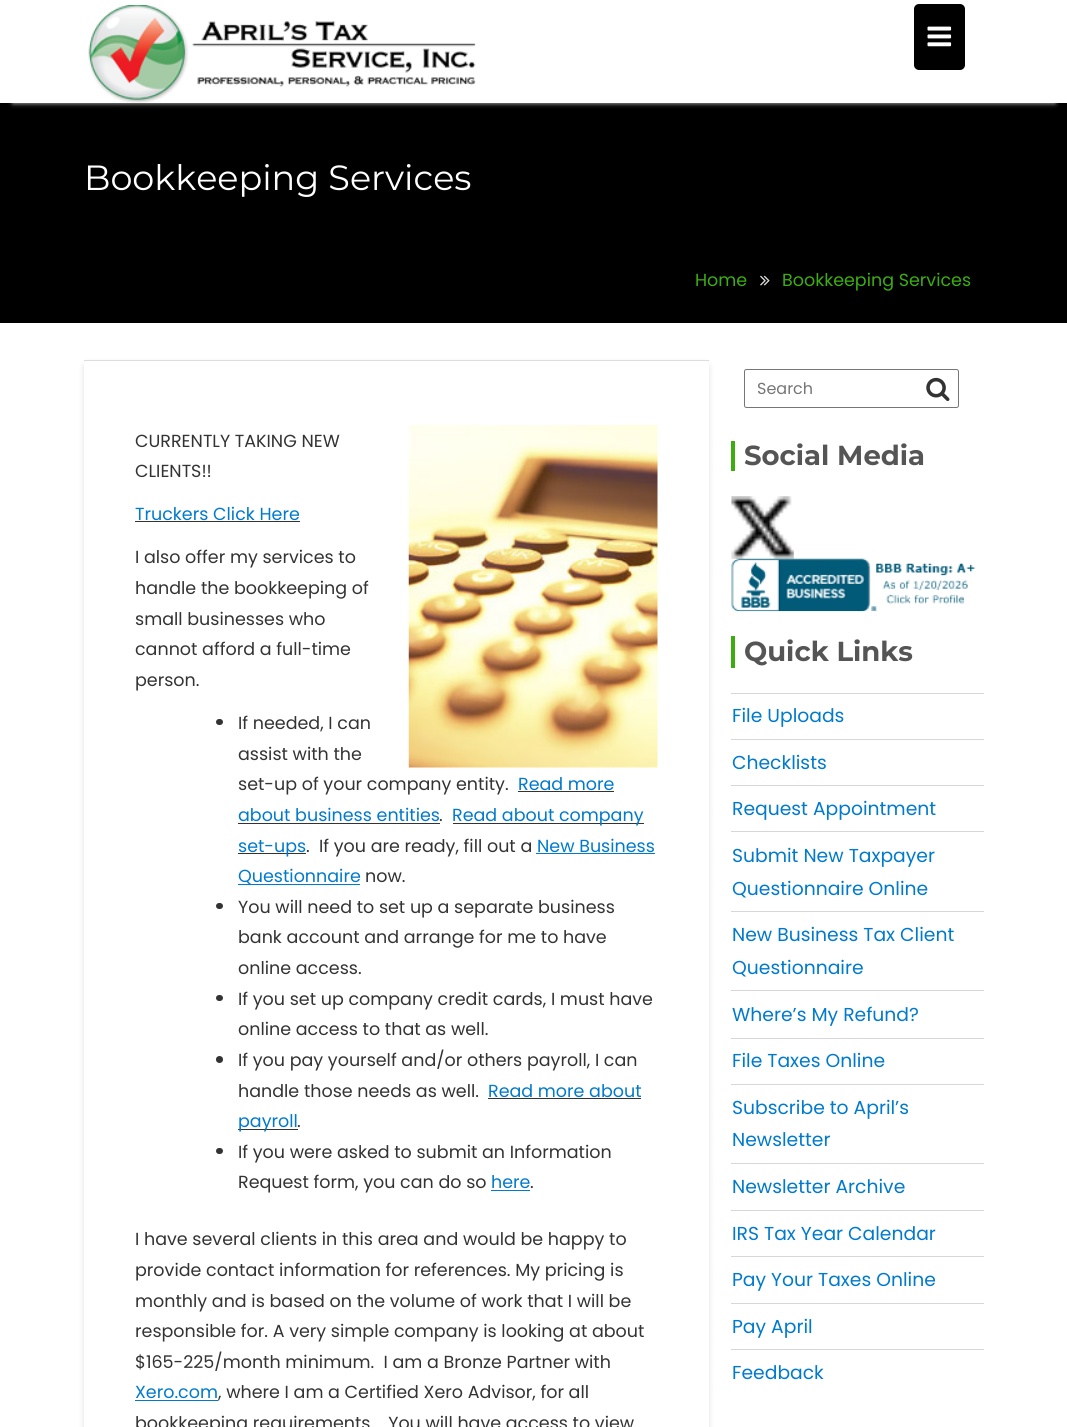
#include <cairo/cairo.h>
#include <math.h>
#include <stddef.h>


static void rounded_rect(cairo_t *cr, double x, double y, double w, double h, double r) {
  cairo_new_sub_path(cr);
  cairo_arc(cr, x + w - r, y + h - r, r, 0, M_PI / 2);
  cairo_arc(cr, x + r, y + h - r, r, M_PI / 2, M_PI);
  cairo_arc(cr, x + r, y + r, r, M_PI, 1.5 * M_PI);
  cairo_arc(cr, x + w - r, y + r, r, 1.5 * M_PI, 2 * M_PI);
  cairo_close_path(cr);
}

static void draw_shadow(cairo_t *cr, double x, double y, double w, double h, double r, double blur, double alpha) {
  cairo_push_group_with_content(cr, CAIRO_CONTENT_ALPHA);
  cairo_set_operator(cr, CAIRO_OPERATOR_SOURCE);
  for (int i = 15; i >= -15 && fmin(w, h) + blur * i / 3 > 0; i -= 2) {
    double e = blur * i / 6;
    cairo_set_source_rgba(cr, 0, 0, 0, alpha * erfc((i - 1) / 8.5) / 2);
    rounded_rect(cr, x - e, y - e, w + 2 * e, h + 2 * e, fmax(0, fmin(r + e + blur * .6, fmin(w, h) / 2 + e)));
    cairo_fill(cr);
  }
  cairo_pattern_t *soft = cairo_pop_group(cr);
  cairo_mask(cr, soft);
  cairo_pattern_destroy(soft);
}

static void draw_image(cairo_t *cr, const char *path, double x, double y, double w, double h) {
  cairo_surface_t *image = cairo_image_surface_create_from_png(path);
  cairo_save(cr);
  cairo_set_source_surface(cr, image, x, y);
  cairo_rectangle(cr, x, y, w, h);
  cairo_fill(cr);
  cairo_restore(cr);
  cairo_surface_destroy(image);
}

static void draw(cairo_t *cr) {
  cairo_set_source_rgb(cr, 1, 1, 1);
  cairo_paint(cr);
  cairo_set_source_rgb(cr, 0, 0, 0);
  cairo_rectangle(cr, 0, 103, 1067, 220);
  cairo_fill(cr);
  cairo_save(cr);
  cairo_set_fill_rule(cr, CAIRO_FILL_RULE_EVEN_ODD);
  cairo_new_path(cr);
  cairo_move_to(cr, 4, 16);
  cairo_line_to(cr, 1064, 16);
  cairo_line_to(cr, 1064, 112);
  cairo_line_to(cr, 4, 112);
  cairo_close_path(cr);
  cairo_move_to(cr, 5, 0);
  cairo_line_to(cr, 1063, 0);
  cairo_curve_to(cr, 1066, 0, 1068, 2, 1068, 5);
  cairo_line_to(cr, 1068, 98);
  cairo_curve_to(cr, 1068, 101, 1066, 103, 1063, 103);
  cairo_line_to(cr, 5, 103);
  cairo_curve_to(cr, 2, 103, 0, 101, 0, 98);
  cairo_line_to(cr, 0, 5);
  cairo_curve_to(cr, 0, 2, 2, 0, 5, 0);
  cairo_close_path(cr);
  cairo_clip(cr);
  cairo_set_source_rgb(cr, 238 / 255.0, 238 / 255.0, 238 / 255.0);
  draw_shadow(cr, 13, 25, 1042, 78, 0, 2.5, 0.9);
  cairo_restore(cr);
  draw_image(cr, "images/1.png", 88, 5, 388, 98);
  rounded_rect(cr, 914, 4, 51, 66, 5);
  cairo_fill(cr);
  draw_image(cr, "images/2.png", 927, 26, 25, 21);
  draw_image(cr, "images/3.png", 760, 275, 10, 11);
  cairo_set_source_rgb(cr, 0, 0, 0);
  draw_shadow(cr, 84, 363, 625, 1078, 5, 3, 0.13);
  cairo_set_source_rgb(cr, 1, 1, 1);
  rounded_rect(cr, 84, 360, 625, 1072, 5);
  cairo_fill(cr);
  cairo_set_source_rgb(cr, 221 / 255.0, 221 / 255.0, 221 / 255.0);
  cairo_rectangle(cr, 84, 360, 625, 1);
  cairo_fill(cr);
  draw_image(cr, "images/4.png", 408, 425, 250, 343);
  cairo_set_source_rgb(cr, 51 / 255.0, 51 / 255.0, 51 / 255.0);
  cairo_rectangle(cr, 135, 521, 165, 1);
  cairo_fill(cr);
  rounded_rect(cr, 216, 719, 7, 6, 3);
  cairo_fill(cr);
  cairo_rectangle(cr, 518, 791, 96, 1);
  cairo_fill(cr);
  cairo_rectangle(cr, 238, 823, 202, 1);
  cairo_fill(cr);
  cairo_rectangle(cr, 453, 823, 191, 1);
  cairo_fill(cr);
  cairo_rectangle(cr, 238, 853, 68, 1);
  cairo_fill(cr);
  cairo_set_source_rgb(cr, 0, 122 / 255.0, 204 / 255.0);
  cairo_rectangle(cr, 536, 853, 119, 1);
  cairo_fill(cr);
  cairo_rectangle(cr, 238, 884, 122, 1);
  cairo_fill(cr);
  cairo_set_source_rgb(cr, 51 / 255.0, 51 / 255.0, 51 / 255.0);
  rounded_rect(cr, 216, 903, 7, 6, 3);
  cairo_fill(cr);
  rounded_rect(cr, 216, 995, 7, 6, 3);
  cairo_fill(cr);
  cairo_arc(cr, 219.5, 1059.5, 3.5, 0, 2 * M_PI);
  cairo_fill(cr);
  cairo_rectangle(cr, 488, 1098, 153, 1);
  cairo_fill(cr);
  cairo_rectangle(cr, 238, 1129, 60, 1);
  cairo_fill(cr);
  rounded_rect(cr, 216, 1148, 7, 6, 3);
  cairo_fill(cr);
  cairo_set_source_rgb(cr, 0, 122 / 255.0, 204 / 255.0);
  cairo_rectangle(cr, 491, 1190, 39, 1);
  cairo_fill(cr);
  cairo_rectangle(cr, 135, 1400, 83, 1);
  cairo_fill(cr);
  rounded_rect(cr, 744.5, 369.5, 214, 38, 2);
  cairo_set_source_rgb(cr, 118 / 255.0, 118 / 255.0, 118 / 255.0);
  cairo_set_line_width(cr, 1);
  cairo_stroke(cr);
  draw_image(cr, "images/5.png", 926, 377, 24, 25);
  cairo_set_source_rgb(cr, 60 / 255.0, 173 / 255.0, 15 / 255.0);
  cairo_rectangle(cr, 731, 441, 4, 30);
  cairo_fill(cr);
  draw_image(cr, "images/6.png", 731, 496, 63, 63);
  draw_image(cr, "images/7.png", 731, 558, 245, 54);
  cairo_rectangle(cr, 731, 636, 4, 32);
  cairo_fill(cr);
  cairo_set_source_rgb(cr, 215 / 255.0, 215 / 255.0, 215 / 255.0);
  cairo_rectangle(cr, 731, 693, 253, 1);
  cairo_fill(cr);
  cairo_rectangle(cr, 731, 739, 253, 1);
  cairo_fill(cr);
  cairo_rectangle(cr, 731, 785, 253, 1);
  cairo_fill(cr);
  cairo_rectangle(cr, 731, 831, 253, 1);
  cairo_fill(cr);
  cairo_rectangle(cr, 731, 911, 253, 1);
  cairo_fill(cr);
  cairo_rectangle(cr, 731, 990, 253, 1);
  cairo_fill(cr);
  cairo_rectangle(cr, 731, 1038, 253, 1);
  cairo_fill(cr);
  cairo_rectangle(cr, 731, 1084, 253, 1);
  cairo_fill(cr);
  cairo_rectangle(cr, 731, 1163, 253, 1);
  cairo_fill(cr);
  cairo_rectangle(cr, 731, 1210, 253, 1);
  cairo_fill(cr);
  cairo_rectangle(cr, 731, 1256, 253, 1);
  cairo_fill(cr);
  cairo_rectangle(cr, 731, 1303, 253, 1);
  cairo_fill(cr);
  cairo_rectangle(cr, 731, 1349, 253, 1);
  cairo_fill(cr);
  cairo_select_font_face(cr, "Montserrat", CAIRO_FONT_SLANT_NORMAL, CAIRO_FONT_WEIGHT_NORMAL);
  cairo_set_font_size(cr, 35);
  cairo_set_source_rgb(cr, 1, 1, 1);
  cairo_move_to(cr, 84, 190);
  cairo_show_text(cr, "Bookkeeping Services");
  cairo_select_font_face(cr, "Poppins", CAIRO_FONT_SLANT_NORMAL, CAIRO_FONT_WEIGHT_NORMAL);
  cairo_set_font_size(cr, 17.5);
  cairo_set_source_rgb(cr, 60 / 255.0, 173 / 255.0, 15 / 255.0);
  cairo_move_to(cr, 695, 286);
  cairo_show_text(cr, "Home");
  cairo_move_to(cr, 782, 286);
  cairo_show_text(cr, "Bookkeeping Services");
  cairo_set_source_rgb(cr, 51 / 255.0, 51 / 255.0, 51 / 255.0);
  cairo_move_to(cr, 135, 447);
  cairo_show_text(cr, "CURRENTLY TAKING NEW");
  cairo_move_to(cr, 135, 477);
  cairo_show_text(cr, "CLIENTS!!");
  cairo_set_source_rgb(cr, 0, 122 / 255.0, 204 / 255.0);
  cairo_move_to(cr, 135, 520);
  cairo_show_text(cr, "Truckers Click Here");
  cairo_set_source_rgb(cr, 51 / 255.0, 51 / 255.0, 51 / 255.0);
  cairo_move_to(cr, 135, 563);
  cairo_show_text(cr, "I also offer my services to");
  cairo_move_to(cr, 135, 594);
  cairo_show_text(cr, "handle the bookkeeping of");
  cairo_move_to(cr, 135, 625);
  cairo_show_text(cr, "small businesses who");
  cairo_move_to(cr, 135, 655);
  cairo_show_text(cr, "cannot afford a full-time");
  cairo_move_to(cr, 135, 686);
  cairo_show_text(cr, "person.");
  cairo_move_to(cr, 238, 729);
  cairo_show_text(cr, "If needed, I can");
  cairo_move_to(cr, 238, 760);
  cairo_show_text(cr, "assist with the");
  cairo_move_to(cr, 238, 790);
  cairo_show_text(cr, "set-up of your company entity.");
  cairo_set_source_rgb(cr, 0, 122 / 255.0, 204 / 255.0);
  cairo_move_to(cr, 518, 790);
  cairo_show_text(cr, "Read more");
  cairo_move_to(cr, 238, 821);
  cairo_show_text(cr, "about business entities");
  cairo_set_source_rgb(cr, 51 / 255.0, 51 / 255.0, 51 / 255.0);
  cairo_move_to(cr, 439, 821);
  cairo_show_text(cr, ".");
  cairo_set_source_rgb(cr, 0, 122 / 255.0, 204 / 255.0);
  cairo_move_to(cr, 452, 821);
  cairo_show_text(cr, "Read about company");
  cairo_move_to(cr, 238, 852);
  cairo_show_text(cr, "set-ups");
  cairo_set_source_rgb(cr, 51 / 255.0, 51 / 255.0, 51 / 255.0);
  cairo_move_to(cr, 306, 852);
  cairo_show_text(cr, ".  If you are ready, fill out a");
  cairo_set_source_rgb(cr, 0, 122 / 255.0, 204 / 255.0);
  cairo_move_to(cr, 537, 852);
  cairo_show_text(cr, "New Business");
  cairo_move_to(cr, 238, 882);
  cairo_show_text(cr, "Questionnaire");
  cairo_set_source_rgb(cr, 51 / 255.0, 51 / 255.0, 51 / 255.0);
  cairo_move_to(cr, 365, 882);
  cairo_show_text(cr, "now.");
  cairo_move_to(cr, 238, 913);
  cairo_show_text(cr, "You will need to set up a separate business");
  cairo_move_to(cr, 238, 943);
  cairo_show_text(cr, "bank account and arrange for me to have");
  cairo_move_to(cr, 238, 974);
  cairo_show_text(cr, "online access.");
  cairo_move_to(cr, 238, 1005);
  cairo_show_text(cr, "If you set up company credit cards, I must have");
  cairo_move_to(cr, 238, 1035);
  cairo_show_text(cr, "online access to that as well.");
  cairo_move_to(cr, 238, 1066);
  cairo_show_text(cr, "If you pay yourself and/or others payroll, I can");
  cairo_move_to(cr, 238, 1097);
  cairo_show_text(cr, "handle those needs as well.");
  cairo_set_source_rgb(cr, 0, 122 / 255.0, 204 / 255.0);
  cairo_move_to(cr, 488, 1097);
  cairo_show_text(cr, "Read more about");
  cairo_move_to(cr, 238, 1127);
  cairo_show_text(cr, "payroll");
  cairo_set_source_rgb(cr, 51 / 255.0, 51 / 255.0, 51 / 255.0);
  cairo_move_to(cr, 297, 1127);
  cairo_show_text(cr, ".");
  cairo_move_to(cr, 238, 1158);
  cairo_show_text(cr, "If you were asked to submit an Information");
  cairo_move_to(cr, 238, 1188);
  cairo_show_text(cr, "Request form, you can do so");
  cairo_set_source_rgb(cr, 0, 122 / 255.0, 204 / 255.0);
  cairo_move_to(cr, 491, 1188);
  cairo_show_text(cr, "here");
  cairo_set_source_rgb(cr, 51 / 255.0, 51 / 255.0, 51 / 255.0);
  cairo_move_to(cr, 530, 1188);
  cairo_show_text(cr, ".");
  cairo_move_to(cr, 135, 1245);
  cairo_show_text(cr, "I have several clients in this area and would be happy to");
  cairo_move_to(cr, 135, 1276);
  cairo_show_text(cr, "provide contact information for references. My pricing is");
  cairo_move_to(cr, 135, 1307);
  cairo_show_text(cr, "monthly and is based on the volume of work that I will be");
  cairo_move_to(cr, 135, 1337);
  cairo_show_text(cr, "responsible for. A very simple company is looking at about");
  cairo_move_to(cr, 135, 1368);
  cairo_show_text(cr, "$165-225/month minimum.  I am a Bronze Partner with");
  cairo_set_source_rgb(cr, 0, 122 / 255.0, 204 / 255.0);
  cairo_move_to(cr, 135, 1398);
  cairo_show_text(cr, "Xero.com");
  cairo_set_source_rgb(cr, 51 / 255.0, 51 / 255.0, 51 / 255.0);
  cairo_move_to(cr, 218, 1398);
  cairo_show_text(cr, ", where I am a Certified Xero Advisor, for all");
  cairo_move_to(cr, 135, 1429);
  cairo_show_text(cr, "bookkeeping requirements.   You will have access to view");
  cairo_set_font_size(cr, 16);
  cairo_set_source_rgb(cr, 117 / 255.0, 117 / 255.0, 117 / 255.0);
  cairo_move_to(cr, 757, 394);
  cairo_show_text(cr, "Search");
  cairo_select_font_face(cr, "Montserrat", CAIRO_FONT_SLANT_NORMAL, CAIRO_FONT_WEIGHT_BOLD);
  cairo_set_font_size(cr, 27.5);
  cairo_set_source_rgb(cr, 85 / 255.0, 85 / 255.0, 85 / 255.0);
  cairo_move_to(cr, 744, 465);
  cairo_show_text(cr, "Social Media");
  cairo_move_to(cr, 744, 661);
  cairo_show_text(cr, "Quick Links");
  cairo_select_font_face(cr, "Poppins", CAIRO_FONT_SLANT_NORMAL, CAIRO_FONT_WEIGHT_NORMAL);
  cairo_set_font_size(cr, 18.75);
  cairo_set_source_rgb(cr, 0, 122 / 255.0, 204 / 255.0);
  cairo_move_to(cr, 732, 722);
  cairo_show_text(cr, "File Uploads");
  cairo_move_to(cr, 732, 769);
  cairo_show_text(cr, "Checklists");
  cairo_move_to(cr, 732, 815);
  cairo_show_text(cr, "Request Appointment");
  cairo_move_to(cr, 732, 862);
  cairo_show_text(cr, "Submit New Taxpayer");
  cairo_move_to(cr, 732, 895);
  cairo_show_text(cr, "Questionnaire Online");
  cairo_move_to(cr, 732, 941);
  cairo_show_text(cr, "New Business Tax Client");
  cairo_move_to(cr, 732, 974);
  cairo_show_text(cr, "Questionnaire");
  cairo_move_to(cr, 732, 1021);
  cairo_show_text(cr, "Where’s My Refund?");
  cairo_move_to(cr, 732, 1067);
  cairo_show_text(cr, "File Taxes Online");
  cairo_move_to(cr, 732, 1114);
  cairo_show_text(cr, "Subscribe to April’s");
  cairo_move_to(cr, 732, 1146);
  cairo_show_text(cr, "Newsletter");
  cairo_move_to(cr, 732, 1193);
  cairo_show_text(cr, "Newsletter Archive");
  cairo_move_to(cr, 732, 1240);
  cairo_show_text(cr, "IRS Tax Year Calendar");
  cairo_move_to(cr, 732, 1286);
  cairo_show_text(cr, "Pay Your Taxes Online");
  cairo_move_to(cr, 732, 1333);
  cairo_show_text(cr, "Pay April");
  cairo_move_to(cr, 732, 1379);
  cairo_show_text(cr, "Feedback");
}

int main(void) {
  cairo_surface_t *surface = cairo_image_surface_create(CAIRO_FORMAT_RGB24, 1067, 1427);
  cairo_t *cr = cairo_create(surface);
  cairo_font_options_t *options = cairo_font_options_create();
  cairo_font_options_set_hint_metrics(options, CAIRO_HINT_METRICS_OFF);
  cairo_font_options_set_hint_style(options, CAIRO_HINT_STYLE_NONE);
  cairo_set_font_options(cr, options);
  cairo_set_miter_limit(cr, 4);
  draw(cr);
  cairo_surface_write_to_png(surface, "out.png");
  cairo_font_options_destroy(options);
  cairo_destroy(cr);
  cairo_surface_destroy(surface);
  return 0;
}
